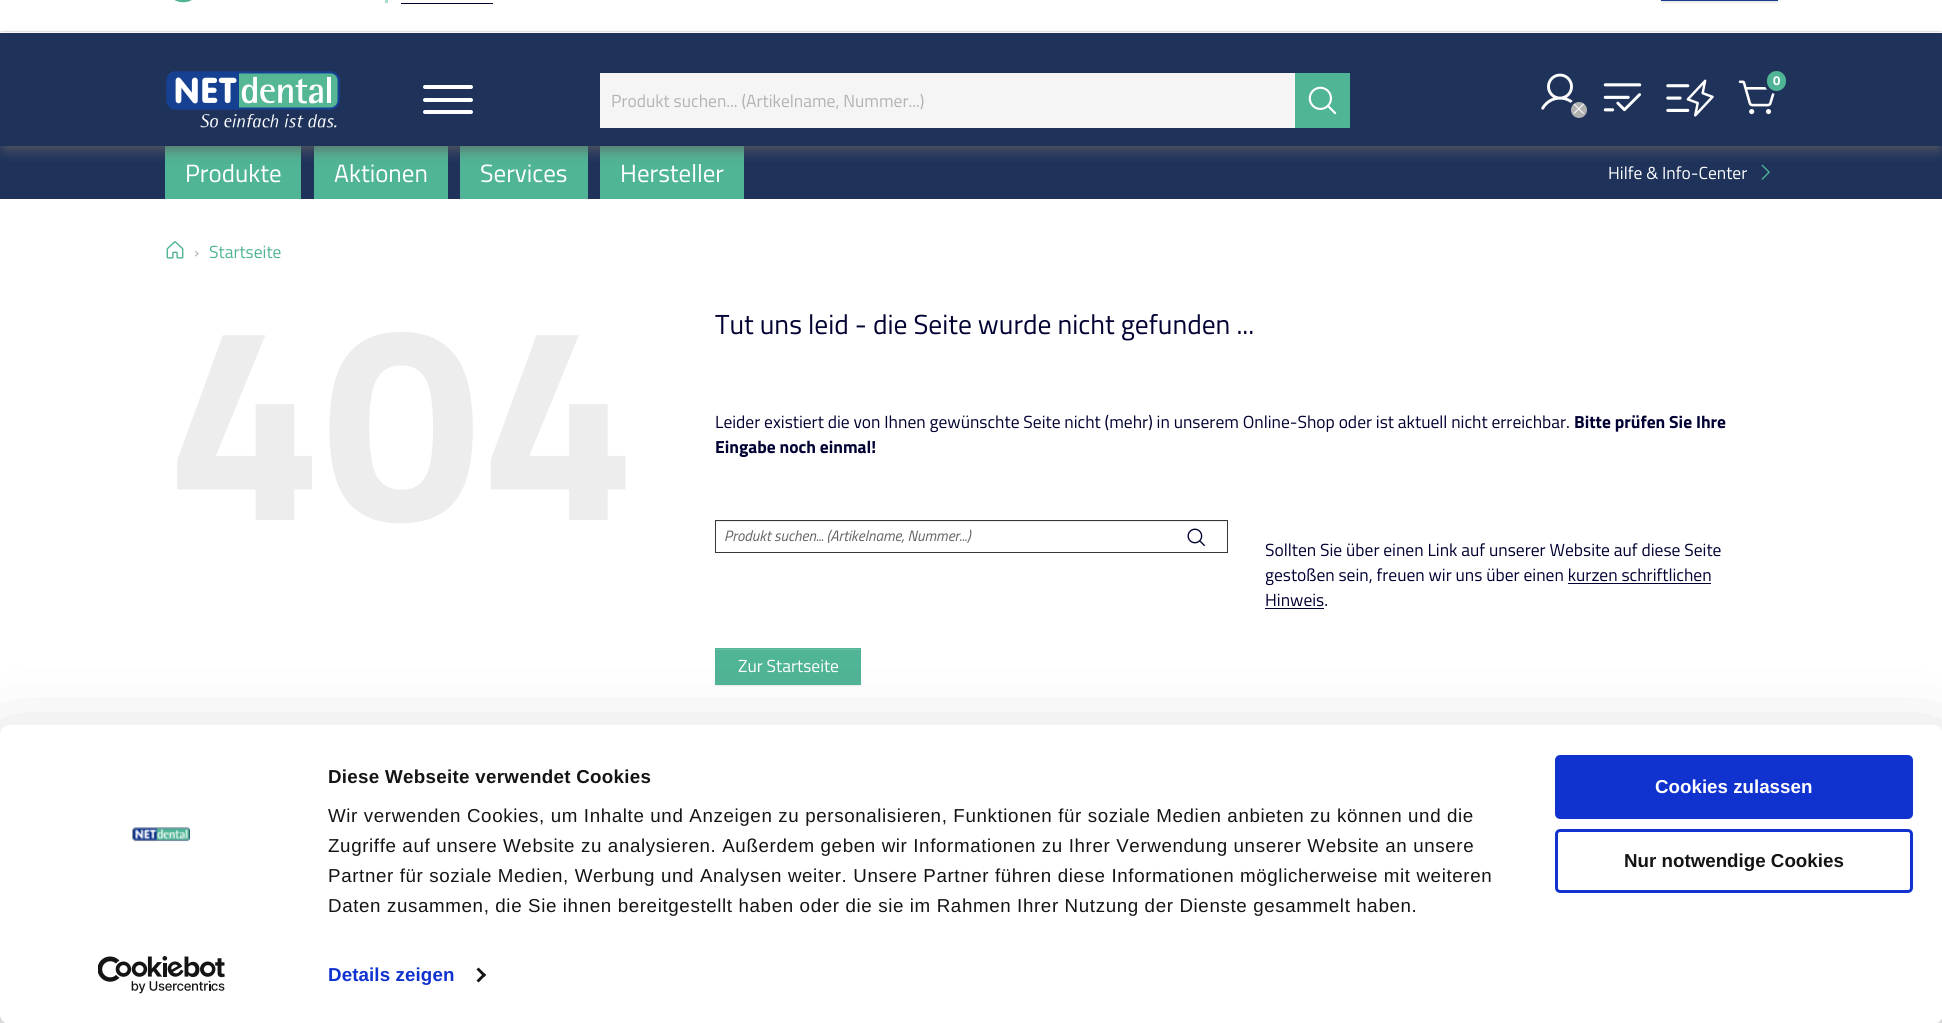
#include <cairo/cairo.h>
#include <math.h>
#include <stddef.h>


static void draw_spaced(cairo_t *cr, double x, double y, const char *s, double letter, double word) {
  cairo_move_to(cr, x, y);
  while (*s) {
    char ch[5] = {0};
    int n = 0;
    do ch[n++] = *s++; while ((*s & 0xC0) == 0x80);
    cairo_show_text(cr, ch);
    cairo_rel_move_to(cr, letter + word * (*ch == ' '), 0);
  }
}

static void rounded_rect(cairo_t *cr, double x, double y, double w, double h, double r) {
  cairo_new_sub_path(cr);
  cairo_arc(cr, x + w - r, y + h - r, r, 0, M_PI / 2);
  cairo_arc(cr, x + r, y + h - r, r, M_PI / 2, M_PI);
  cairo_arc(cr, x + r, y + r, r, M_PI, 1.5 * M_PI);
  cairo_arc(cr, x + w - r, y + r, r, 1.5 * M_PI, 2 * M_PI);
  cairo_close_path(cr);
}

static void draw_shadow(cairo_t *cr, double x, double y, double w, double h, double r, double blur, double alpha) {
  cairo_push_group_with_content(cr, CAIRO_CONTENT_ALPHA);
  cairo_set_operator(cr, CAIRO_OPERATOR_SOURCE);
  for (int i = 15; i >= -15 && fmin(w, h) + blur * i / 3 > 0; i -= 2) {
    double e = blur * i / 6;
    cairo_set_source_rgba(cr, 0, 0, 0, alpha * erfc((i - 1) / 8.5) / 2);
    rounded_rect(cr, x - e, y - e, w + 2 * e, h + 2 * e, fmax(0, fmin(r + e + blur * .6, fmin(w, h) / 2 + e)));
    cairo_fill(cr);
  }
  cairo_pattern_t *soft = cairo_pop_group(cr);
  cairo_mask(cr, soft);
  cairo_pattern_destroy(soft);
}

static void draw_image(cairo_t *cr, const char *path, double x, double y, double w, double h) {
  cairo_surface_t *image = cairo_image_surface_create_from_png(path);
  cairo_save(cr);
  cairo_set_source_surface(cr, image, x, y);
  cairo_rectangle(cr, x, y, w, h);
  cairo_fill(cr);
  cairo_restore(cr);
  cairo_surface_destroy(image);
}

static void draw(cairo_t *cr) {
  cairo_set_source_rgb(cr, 1, 1, 1);
  cairo_paint(cr);
  cairo_set_source_rgb(cr, 229 / 255.0, 229 / 255.0, 229 / 255.0);
  cairo_new_path(cr);
  cairo_move_to(cr, 1942, 32);
  cairo_line_to(cr, 0, 32);
  cairo_line_to(cr, 1, 31);
  cairo_line_to(cr, 1941, 31);
  cairo_close_path(cr);
  cairo_fill(cr);
  draw_image(cr, "images/1.png", 174, 0, 18, 3);
  cairo_set_source_rgb(cr, 169 / 255.0, 218 / 255.0, 204 / 255.0);
  cairo_rectangle(cr, 385, 0, 3, 3);
  cairo_fill(cr);
  cairo_set_source_rgb(cr, 0, 0, 50 / 255.0);
  cairo_rectangle(cr, 401, 3, 92, 1);
  cairo_fill(cr);
  cairo_set_source_rgb(cr, 0, 0, 0);
  draw_shadow(cr, 1661, -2, 117, 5, 0, 0.5, 0.07);
  cairo_set_source_rgb(cr, 25 / 255.0, 60 / 255.0, 145 / 255.0);
  cairo_rectangle(cr, 1661, 0, 117, 1);
  cairo_fill(cr);
  cairo_set_source_rgb(cr, 30 / 255.0, 50 / 255.0, 90 / 255.0);
  cairo_rectangle(cr, 0, 146, 1942, 53);
  cairo_fill(cr);
  cairo_set_source_rgb(cr, 80 / 255.0, 180 / 255.0, 150 / 255.0);
  cairo_rectangle(cr, 165, 146, 136, 53);
  cairo_fill(cr);
  cairo_rectangle(cr, 314, 146, 134, 53);
  cairo_fill(cr);
  cairo_rectangle(cr, 460, 146, 128, 53);
  cairo_fill(cr);
  cairo_rectangle(cr, 600, 146, 144, 53);
  cairo_fill(cr);
  draw_image(cr, "images/9.png", 1761, 164, 9, 16);
  cairo_set_source_rgb(cr, 99 / 255.0, 99 / 255.0, 99 / 255.0);
  draw_shadow(cr, 5, 44, 1933, 104, 0, 7.5, 1);
  cairo_set_source_rgb(cr, 30 / 255.0, 50 / 255.0, 90 / 255.0);
  cairo_rectangle(cr, 0, 33, 1942, 113);
  cairo_fill(cr);
  draw_image(cr, "images/2.png", 166, 71, 174, 57);
  cairo_set_source_rgb(cr, 1, 1, 1);
  rounded_rect(cr, 423, 110, 50, 4, 2);
  cairo_fill(cr);
  rounded_rect(cr, 423, 85, 50, 4, 2);
  cairo_fill(cr);
  rounded_rect(cr, 423, 98, 50, 4, 2);
  cairo_fill(cr);
  draw_image(cr, "images/3.png", 1541, 73, 32, 37);
  cairo_set_source_rgb(cr, 178 / 255.0, 178 / 255.0, 178 / 255.0);
  cairo_arc(cr, 1579, 110, 9.5, 0, 2 * M_PI);
  cairo_fill_preserve(cr);
  cairo_set_source_rgb(cr, 30 / 255.0, 50 / 255.0, 90 / 255.0);
  cairo_set_line_width(cr, 3);
  cairo_stroke(cr);
  draw_image(cr, "images/4.png", 1573, 103, 11, 11);
  draw_image(cr, "images/5.png", 1603, 83, 39, 29);
  draw_image(cr, "images/6.png", 1666, 79, 48, 38);
  draw_image(cr, "images/7.png", 1738, 80, 37, 35);
  cairo_set_source_rgb(cr, 80 / 255.0, 180 / 255.0, 150 / 255.0);
  rounded_rect(cr, 1765.5, 69.5, 22, 23, 11);
  cairo_fill_preserve(cr);
  cairo_set_source_rgb(cr, 30 / 255.0, 50 / 255.0, 90 / 255.0);
  cairo_stroke(cr);
  cairo_set_source_rgb(cr, 245 / 255.0, 245 / 255.0, 245 / 255.0);
  cairo_rectangle(cr, 600, 73, 695, 55);
  cairo_fill(cr);
  cairo_set_source_rgb(cr, 80 / 255.0, 180 / 255.0, 150 / 255.0);
  cairo_rectangle(cr, 1295, 73, 55, 55);
  cairo_fill(cr);
  draw_image(cr, "images/8.png", 1308, 86, 29, 29);
  draw_image(cr, "images/10.png", 166, 241, 18, 18);
  cairo_set_source_rgb(cr, 236 / 255.0, 236 / 255.0, 236 / 255.0);
  cairo_rectangle(cr, 716, 521, 510, 1);
  cairo_fill(cr);
  cairo_rectangle(cr, 715.5, 520.5, 512, 32);
  cairo_set_source_rgb(cr, 55 / 255.0, 55 / 255.0, 55 / 255.0);
  cairo_set_line_width(cr, 1);
  cairo_stroke(cr);
  draw_image(cr, "images/11.png", 1187, 528, 18, 18);
  cairo_set_source_rgb(cr, 0, 0, 50 / 255.0);
  cairo_rectangle(cr, 1568, 583, 143, 1);
  cairo_fill(cr);
  cairo_rectangle(cr, 1265, 608, 59, 1);
  cairo_fill(cr);
  cairo_set_source_rgb(cr, 0, 0, 0);
  draw_shadow(cr, 715, 649, 146, 37, 0, 0.5, 0.07);
  cairo_set_source_rgb(cr, 80 / 255.0, 180 / 255.0, 150 / 255.0);
  cairo_rectangle(cr, 715, 648, 146, 37);
  cairo_fill(cr);
  cairo_set_source_rgb(cr, 106 / 255.0, 191 / 255.0, 166 / 255.0);
  cairo_rectangle(cr, 716, 649, 144, 1);
  cairo_fill(cr);
  cairo_set_source_rgb(cr, 0, 0, 0);
  draw_shadow(cr, 0, 763, 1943, 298, 10, 44, 0.3);
  cairo_set_source_rgb(cr, 1, 1, 1);
  rounded_rect(cr, 0, 725, 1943, 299, 10);
  cairo_fill(cr);
  draw_image(cr, "images/12.png", 132, 827, 58, 15);
  draw_image(cr, "images/13.png", 98, 956, 127, 38);
  cairo_set_source_rgb(cr, 20 / 255.0, 20 / 255.0, 20 / 255.0);
  cairo_new_path(cr);
  cairo_move_to(cr, 478.5, 967.5);
  cairo_line_to(cr, 486, 975);
  cairo_line_to(cr, 484, 977);
  cairo_line_to(cr, 476.5, 969.5);
  cairo_close_path(cr);
  cairo_fill(cr);
  cairo_new_path(cr);
  cairo_move_to(cr, 484, 973);
  cairo_line_to(cr, 486, 975);
  cairo_line_to(cr, 478.5, 982.5);
  cairo_line_to(cr, 476.5, 980.5);
  cairo_close_path(cr);
  cairo_fill(cr);
  cairo_set_source_rgb(cr, 16 / 255.0, 50 / 255.0, 207 / 255.0);
  rounded_rect(cr, 1556.5, 756.5, 355, 61, 3.5);
  cairo_fill_preserve(cr);
  cairo_set_line_width(cr, 3);
  cairo_stroke(cr);
  rounded_rect(cr, 1556.5, 830.5, 355, 61, 3.5);
  cairo_stroke(cr);
  cairo_select_font_face(cr, "Titillium Web", CAIRO_FONT_SLANT_NORMAL, CAIRO_FONT_WEIGHT_BOLD);
  cairo_set_font_size(cr, 13);
  cairo_set_source_rgb(cr, 1, 1, 1);
  cairo_move_to(cr, 1773, 85);
  cairo_show_text(cr, "0");
  cairo_select_font_face(cr, "Titillium Web", CAIRO_FONT_SLANT_NORMAL, CAIRO_FONT_WEIGHT_NORMAL);
  cairo_set_font_size(cr, 17.5);
  cairo_set_source_rgb(cr, 179 / 255.0, 179 / 255.0, 180 / 255.0);
  cairo_move_to(cr, 611, 107);
  cairo_show_text(cr, "Produkt suchen... (Artikelname, Nummer...)");
  cairo_set_font_size(cr, 25);
  cairo_set_source_rgb(cr, 1, 1, 1);
  cairo_move_to(cr, 185, 182);
  cairo_show_text(cr, "Produkte");
  cairo_move_to(cr, 334, 182);
  cairo_show_text(cr, "Aktionen");
  cairo_move_to(cr, 480, 182);
  cairo_show_text(cr, "Services");
  cairo_move_to(cr, 620, 182);
  cairo_show_text(cr, "Hersteller");
  cairo_set_font_size(cr, 17.5);
  cairo_move_to(cr, 1608, 179);
  cairo_show_text(cr, "Hilfe & Info-Center");
  cairo_set_source_rgb(cr, 172 / 255.0, 174 / 255.0, 175 / 255.0);
  cairo_move_to(cr, 194, 258);
  cairo_show_text(cr, "›");
  cairo_set_source_rgb(cr, 80 / 255.0, 180 / 255.0, 150 / 255.0);
  cairo_move_to(cr, 209, 258);
  cairo_show_text(cr, "Startseite");
  cairo_select_font_face(cr, "Titillium Web", CAIRO_FONT_SLANT_NORMAL, CAIRO_FONT_WEIGHT_BOLD);
  cairo_set_font_size(cr, 280);
  cairo_set_source_rgb(cr, 237 / 255.0, 237 / 255.0, 237 / 255.0);
  cairo_move_to(cr, 166, 520);
  cairo_show_text(cr, "404");
  cairo_select_font_face(cr, "Titillium Web", CAIRO_FONT_SLANT_NORMAL, CAIRO_FONT_WEIGHT_NORMAL);
  cairo_set_font_size(cr, 27.5);
  cairo_set_source_rgb(cr, 0, 0, 50 / 255.0);
  cairo_move_to(cr, 715, 334);
  cairo_show_text(cr, "Tut uns leid - die Seite wurde nicht gefunden ...");
  cairo_set_font_size(cr, 17.5);
  cairo_move_to(cr, 715, 428);
  cairo_show_text(cr, "Leider existiert die von Ihnen gewünschte Seite nicht (mehr) in unserem Online-Shop oder ist aktuell nicht erreichbar.");
  cairo_select_font_face(cr, "Titillium Web", CAIRO_FONT_SLANT_NORMAL, CAIRO_FONT_WEIGHT_BOLD);
  cairo_move_to(cr, 1574, 428);
  cairo_show_text(cr, "Bitte prüfen Sie Ihre");
  cairo_move_to(cr, 715, 453);
  cairo_show_text(cr, "Eingabe noch einmal!");
  cairo_select_font_face(cr, "Titillium Web", CAIRO_FONT_SLANT_ITALIC, CAIRO_FONT_WEIGHT_NORMAL);
  cairo_set_font_size(cr, 15);
  cairo_set_source_rgb(cr, 99 / 255.0, 99 / 255.0, 99 / 255.0);
  cairo_move_to(cr, 724, 541);
  cairo_show_text(cr, "Produkt suchen... (Artikelname, Nummer...)");
  cairo_select_font_face(cr, "Titillium Web", CAIRO_FONT_SLANT_NORMAL, CAIRO_FONT_WEIGHT_NORMAL);
  cairo_set_font_size(cr, 17.5);
  cairo_set_source_rgb(cr, 0, 0, 50 / 255.0);
  cairo_move_to(cr, 1265, 556);
  cairo_show_text(cr, "Sollten Sie über einen Link auf unserer Website auf diese Seite");
  cairo_move_to(cr, 1265, 581);
  cairo_show_text(cr, "gestoßen sein, freuen wir uns über einen kurzen schriftlichen");
  cairo_move_to(cr, 1265, 606);
  cairo_show_text(cr, "Hinweis.");
  cairo_set_source_rgb(cr, 1, 1, 1);
  cairo_move_to(cr, 738, 672);
  cairo_show_text(cr, "Zur Startseite");
  cairo_select_font_face(cr, "Liberation Sans", CAIRO_FONT_SLANT_NORMAL, CAIRO_FONT_WEIGHT_BOLD);
  cairo_set_font_size(cr, 18.75);
  cairo_set_source_rgb(cr, 20 / 255.0, 20 / 255.0, 20 / 255.0);
  draw_spaced(cr, 328, 783, "Diese Webseite verwendet Cookies", 0.3, 0);
  cairo_select_font_face(cr, "Liberation Sans", CAIRO_FONT_SLANT_NORMAL, CAIRO_FONT_WEIGHT_NORMAL);
  draw_spaced(cr, 328, 822, "Wir verwenden Cookies, um Inhalte und Anzeigen zu personalisieren, Funktionen für soziale Medien anbieten zu können und die", 0.62, 0);
  draw_spaced(cr, 328, 852, "Zugriffe auf unsere Website zu analysieren. Außerdem geben wir Informationen zu Ihrer Verwendung unserer Website an unsere", 0.62, 0);
  draw_spaced(cr, 328, 882, "Partner für soziale Medien, Werbung und Analysen weiter. Unsere Partner führen diese Informationen möglicherweise mit weiteren", 0.62, 0);
  draw_spaced(cr, 328, 912, "Daten zusammen, die Sie ihnen bereitgestellt haben oder die sie im Rahmen Ihrer Nutzung der Dienste gesammelt haben.", 0.62, 0);
  cairo_select_font_face(cr, "Liberation Sans", CAIRO_FONT_SLANT_NORMAL, CAIRO_FONT_WEIGHT_BOLD);
  cairo_set_source_rgb(cr, 16 / 255.0, 50 / 255.0, 207 / 255.0);
  draw_spaced(cr, 328, 981, "Details zeigen", 0.1, 0);
  cairo_set_source_rgb(cr, 1, 1, 1);
  cairo_move_to(cr, 1655, 793);
  cairo_show_text(cr, "Cookies zulassen");
  cairo_set_source_rgb(cr, 20 / 255.0, 20 / 255.0, 20 / 255.0);
  cairo_move_to(cr, 1624, 867);
  cairo_show_text(cr, "Nur notwendige Cookies");
}

int main(void) {
  cairo_surface_t *surface = cairo_image_surface_create(CAIRO_FORMAT_RGB24, 1942, 1023);
  cairo_t *cr = cairo_create(surface);
  cairo_font_options_t *options = cairo_font_options_create();
  cairo_font_options_set_hint_metrics(options, CAIRO_HINT_METRICS_OFF);
  cairo_font_options_set_hint_style(options, CAIRO_HINT_STYLE_NONE);
  cairo_set_font_options(cr, options);
  cairo_set_miter_limit(cr, 4);
  draw(cr);
  cairo_surface_write_to_png(surface, "out.png");
  cairo_font_options_destroy(options);
  cairo_destroy(cr);
  cairo_surface_destroy(surface);
  return 0;
}
